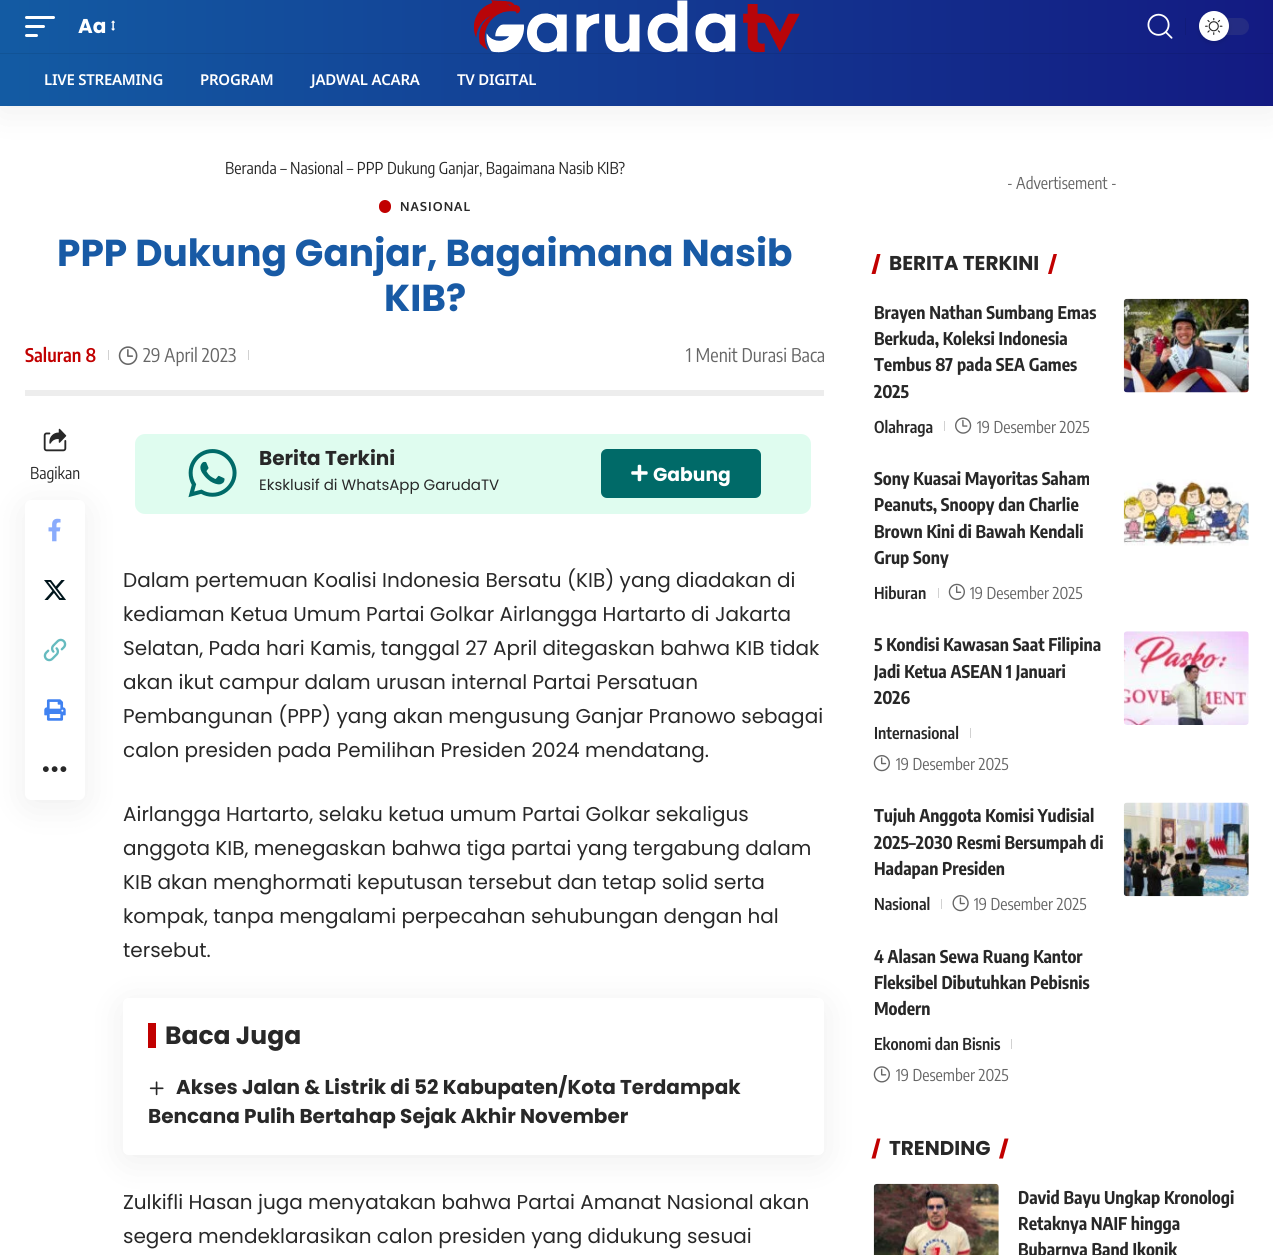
#include <cairo/cairo.h>
#include <math.h>
#include <stddef.h>


static void draw_spaced(cairo_t *cr, double x, double y, const char *s, double letter, double word) {
  cairo_move_to(cr, x, y);
  while (*s) {
    char ch[5] = {0};
    int n = 0;
    do ch[n++] = *s++; while ((*s & 0xC0) == 0x80);
    cairo_show_text(cr, ch);
    cairo_rel_move_to(cr, letter + word * (*ch == ' '), 0);
  }
}

static void rounded_rect(cairo_t *cr, double x, double y, double w, double h, double r) {
  cairo_new_sub_path(cr);
  cairo_arc(cr, x + w - r, y + h - r, r, 0, M_PI / 2);
  cairo_arc(cr, x + r, y + h - r, r, M_PI / 2, M_PI);
  cairo_arc(cr, x + r, y + r, r, M_PI, 1.5 * M_PI);
  cairo_arc(cr, x + w - r, y + r, r, 1.5 * M_PI, 2 * M_PI);
  cairo_close_path(cr);
}

static void draw_shadow(cairo_t *cr, double x, double y, double w, double h, double r, double blur, double alpha) {
  cairo_push_group_with_content(cr, CAIRO_CONTENT_ALPHA);
  cairo_set_operator(cr, CAIRO_OPERATOR_SOURCE);
  for (int i = 15; i >= -15 && fmin(w, h) + blur * i / 3 > 0; i -= 2) {
    double e = blur * i / 6;
    cairo_set_source_rgba(cr, 0, 0, 0, alpha * erfc((i - 1) / 8.5) / 2);
    rounded_rect(cr, x - e, y - e, w + 2 * e, h + 2 * e, fmax(0, fmin(r + e + blur * .6, fmin(w, h) / 2 + e)));
    cairo_fill(cr);
  }
  cairo_pattern_t *soft = cairo_pop_group(cr);
  cairo_mask(cr, soft);
  cairo_pattern_destroy(soft);
}

static void draw_image(cairo_t *cr, const char *path, double x, double y, double w, double h) {
  cairo_surface_t *image = cairo_image_surface_create_from_png(path);
  cairo_save(cr);
  cairo_set_source_surface(cr, image, x, y);
  cairo_rectangle(cr, x, y, w, h);
  cairo_fill(cr);
  cairo_restore(cr);
  cairo_surface_destroy(image);
}

static void draw(cairo_t *cr) {
  cairo_pattern_t *gradient;
  cairo_set_source_rgb(cr, 1, 1, 1);
  cairo_paint(cr);
  cairo_set_source_rgb(cr, 0, 0, 0);
  draw_shadow(cr, 0, 5, 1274, 106, 0, 19, 0.07);
  gradient = cairo_pattern_create_linear(0, 53, 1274, 53);
  cairo_pattern_add_color_stop_rgba(gradient, 0, 19 / 255.0, 91 / 255.0, 163 / 255.0, 1);
  cairo_pattern_add_color_stop_rgba(gradient, 1, 19 / 255.0, 26 / 255.0, 130 / 255.0, 1);
  cairo_set_source(cr, gradient);
  cairo_pattern_destroy(gradient);
  cairo_rectangle(cr, 0, 0, 1273, 106);
  cairo_fill(cr);
  gradient = cairo_pattern_create_linear(0, 53, 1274, 53);
  cairo_pattern_add_color_stop_rgba(gradient, 0, 17 / 255.0, 84 / 255.0, 150 / 255.0, 1);
  cairo_pattern_add_color_stop_rgba(gradient, 1, 17 / 255.0, 24 / 255.0, 120 / 255.0, 1);
  cairo_set_source(cr, gradient);
  cairo_pattern_destroy(gradient);
  cairo_rectangle(cr, 0, 53, 1273, 1);
  cairo_fill(cr);
  cairo_set_source_rgb(cr, 1, 1, 1);
  rounded_rect(cr, 25, 16, 30, 3, 1.5);
  cairo_fill(cr);
  rounded_rect(cr, 25, 25, 20, 3, 1.5);
  cairo_fill(cr);
  rounded_rect(cr, 25, 34, 13, 3, 1.5);
  cairo_fill(cr);
  draw_image(cr, "images/1.png", 111, 20, 4, 11);
  draw_image(cr, "images/2.png", 474, 0, 326, 53);
  draw_image(cr, "images/3.png", 1147, 13, 26, 26);
  cairo_set_source_rgb(cr, 17 / 255.0, 28 / 255.0, 121 / 255.0);
  cairo_rectangle(cr, 1185, 18, 1, 17);
  cairo_fill(cr);
  cairo_set_source_rgba(cr, 136 / 255.0, 136 / 255.0, 136 / 255.0, 0.15);
  rounded_rect(cr, 1199, 18, 50, 17, 8.5);
  cairo_fill(cr);
  cairo_set_source_rgb(cr, 0, 0, 0);
  draw_shadow(cr, 1199, 13, 30, 30, 15, 2.5, 0.12);
  cairo_set_source_rgb(cr, 1, 1, 1);
  cairo_arc(cr, 1214, 26, 15, 0, 2 * M_PI);
  cairo_fill(cr);
  draw_image(cr, "images/4.png", 1205, 18, 18, 17);
  cairo_set_source_rgb(cr, 237 / 255.0, 237 / 255.0, 237 / 255.0);
  cairo_rectangle(cr, 25, 390, 799, 6);
  cairo_fill(cr);
  cairo_set_source_rgb(cr, 193 / 255.0, 0, 0);
  rounded_rect(cr, 379, 200, 12, 13, 6);
  cairo_fill(cr);
  cairo_set_source_rgb(cr, 209 / 255.0, 209 / 255.0, 209 / 255.0);
  cairo_rectangle(cr, 108, 350, 1, 10);
  cairo_fill(cr);
  draw_image(cr, "images/5.png", 118, 346, 20, 19);
  cairo_rectangle(cr, 248, 350, 1, 10);
  cairo_fill(cr);
  draw_image(cr, "images/11.png", 43, 428, 24, 24);
  cairo_set_source_rgb(cr, 0, 0, 0);
  draw_shadow(cr, 25, 506, 60, 300, 6, 19, 0.07);
  cairo_set_source_rgb(cr, 1, 1, 1);
  rounded_rect(cr, 25, 500, 60, 300, 6);
  cairo_fill(cr);
  draw_image(cr, "images/6.png", 48, 518, 13, 24);
  draw_image(cr, "images/7.png", 44, 580, 22, 20);
  draw_image(cr, "images/8.png", 43, 638, 24, 24);
  draw_image(cr, "images/9.png", 44, 699, 22, 22);
  draw_image(cr, "images/10.png", 42, 766, 25, 6);
  cairo_set_source_rgb(cr, 223 / 255.0, 252 / 255.0, 239 / 255.0);
  rounded_rect(cr, 135, 434, 676, 80, 10);
  cairo_fill(cr);
  draw_image(cr, "images/12.png", 188, 449, 49, 49);
  cairo_set_source_rgb(cr, 0, 106 / 255.0, 104 / 255.0);
  rounded_rect(cr, 601, 449, 160, 49, 6);
  cairo_fill(cr);
  draw_image(cr, "images/13.png", 631, 464, 17, 18);
  draw_image(cr, "images/23.png", 873, 1066, 17, 17);
  cairo_set_source_rgb(cr, 193 / 255.0, 0, 0);
  cairo_new_path(cr);
  cairo_move_to(cr, 877, 1138.5);
  cairo_line_to(cr, 880.5, 1138.5);
  cairo_line_to(cr, 875.5, 1158.5);
  cairo_line_to(cr, 871.5, 1158.5);
  cairo_close_path(cr);
  cairo_fill(cr);
  draw_image(cr, "images/24.png", 873, 1183, 126, 72);
  cairo_save(cr);
  cairo_set_fill_rule(cr, CAIRO_FILL_RULE_EVEN_ODD);
  cairo_new_path(cr);
  cairo_move_to(cr, 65, 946);
  cairo_line_to(cr, 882, 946);
  cairo_line_to(cr, 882, 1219);
  cairo_line_to(cr, 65, 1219);
  cairo_close_path(cr);
  cairo_move_to(cr, 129, 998);
  cairo_line_to(cr, 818, 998);
  cairo_curve_to(cr, 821.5, 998, 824, 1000.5, 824, 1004);
  cairo_line_to(cr, 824, 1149);
  cairo_curve_to(cr, 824, 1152.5, 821.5, 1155, 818, 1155);
  cairo_line_to(cr, 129, 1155);
  cairo_curve_to(cr, 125.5, 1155, 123, 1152.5, 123, 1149);
  cairo_line_to(cr, 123, 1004);
  cairo_curve_to(cr, 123, 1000.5, 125.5, 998, 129, 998);
  cairo_close_path(cr);
  cairo_clip(cr);
  cairo_set_source_rgb(cr, 0, 0, 0);
  draw_shadow(cr, 123, 1004, 701, 157, 6, 19, 0.07);
  cairo_restore(cr);
  cairo_rectangle(cr, 148, 1023, 8, 25);
  cairo_fill(cr);
  draw_image(cr, "images/14.png", 149, 1081, 15, 15);
  cairo_new_path(cr);
  cairo_move_to(cr, 1053.5, 254);
  cairo_line_to(cr, 1057, 254);
  cairo_line_to(cr, 1051.5, 274);
  cairo_line_to(cr, 1048, 274);
  cairo_close_path(cr);
  cairo_fill(cr);
  cairo_new_path(cr);
  cairo_move_to(cr, 877, 254);
  cairo_line_to(cr, 880.5, 254);
  cairo_line_to(cr, 875.5, 274);
  cairo_line_to(cr, 871.5, 274);
  cairo_close_path(cr);
  cairo_fill(cr);
  cairo_set_source_rgb(cr, 209 / 255.0, 209 / 255.0, 209 / 255.0);
  cairo_rectangle(cr, 944, 421, 1, 10);
  cairo_fill(cr);
  draw_image(cr, "images/15.png", 955, 417, 17, 17);
  draw_image(cr, "images/16.png", 1123, 298, 126, 95);
  cairo_rectangle(cr, 938, 588, 1, 10);
  cairo_fill(cr);
  draw_image(cr, "images/17.png", 948, 583, 17, 17);
  draw_image(cr, "images/18.png", 1123, 479, 126, 67);
  cairo_rectangle(cr, 970, 728, 1, 10);
  cairo_fill(cr);
  draw_image(cr, "images/19.png", 873, 755, 17, 17);
  draw_image(cr, "images/20.png", 1123, 631, 126, 94);
  cairo_rectangle(cr, 941, 899, 1, 10);
  cairo_fill(cr);
  draw_image(cr, "images/21.png", 952, 895, 17, 17);
  draw_image(cr, "images/22.png", 1123, 802, 126, 95);
  cairo_rectangle(cr, 1011, 1039, 1, 10);
  cairo_fill(cr);
  cairo_set_source_rgb(cr, 193 / 255.0, 0, 0);
  cairo_new_path(cr);
  cairo_move_to(cr, 1004.5, 1138.5);
  cairo_line_to(cr, 1008.5, 1138.5);
  cairo_line_to(cr, 1003, 1158.5);
  cairo_line_to(cr, 999, 1158.5);
  cairo_close_path(cr);
  cairo_fill(cr);
  cairo_select_font_face(cr, "Poppins", CAIRO_FONT_SLANT_NORMAL, CAIRO_FONT_WEIGHT_BOLD);
  cairo_set_font_size(cr, 20);
  cairo_set_source_rgb(cr, 1, 1, 1);
  cairo_move_to(cr, 78, 33);
  cairo_show_text(cr, "Aa");
  cairo_select_font_face(cr, "Noto Sans SemiBold", CAIRO_FONT_SLANT_NORMAL, CAIRO_FONT_WEIGHT_NORMAL);
  cairo_set_font_size(cr, 15);
  draw_spaced(cr, 44, 85, "LIVE STREAMING", -0.25, 0);
  draw_spaced(cr, 200, 85, "PROGRAM", -0.25, 0);
  draw_spaced(cr, 311, 85, "JADWAL ACARA", -0.25, 0);
  draw_spaced(cr, 457, 85, "TV DIGITAL", -0.25, 0);
  cairo_select_font_face(cr, "Encode Sans Condensed", CAIRO_FONT_SLANT_NORMAL, CAIRO_FONT_WEIGHT_NORMAL);
  cairo_set_font_size(cr, 16.25);
  cairo_set_source_rgb(cr, 40 / 255.0, 40 / 255.0, 40 / 255.0);
  cairo_move_to(cr, 225, 174);
  cairo_show_text(cr, "Beranda – Nasional – PPP Dukung Ganjar, Bagaimana Nasib KIB?");
  cairo_select_font_face(cr, "Oxygen", CAIRO_FONT_SLANT_NORMAL, CAIRO_FONT_WEIGHT_BOLD);
  cairo_set_font_size(cr, 12.5);
  draw_spaced(cr, 400, 211, "NASIONAL", 1, 0);
  cairo_select_font_face(cr, "Poppins", CAIRO_FONT_SLANT_NORMAL, CAIRO_FONT_WEIGHT_BOLD);
  cairo_set_font_size(cr, 37.5);
  cairo_set_source_rgb(cr, 24 / 255.0, 90 / 255.0, 165 / 255.0);
  cairo_move_to(cr, 57, 266);
  cairo_show_text(cr, "PPP Dukung Ganjar, Bagaimana Nasib");
  cairo_move_to(cr, 384, 311);
  cairo_show_text(cr, "KIB?");
  cairo_select_font_face(cr, "Encode Sans Condensed SemiBold", CAIRO_FONT_SLANT_NORMAL, CAIRO_FONT_WEIGHT_NORMAL);
  cairo_set_font_size(cr, 18.75);
  cairo_set_source_rgb(cr, 193 / 255.0, 0, 0);
  cairo_move_to(cr, 25, 362);
  cairo_show_text(cr, "Saluran 8");
  cairo_select_font_face(cr, "Encode Sans Condensed", CAIRO_FONT_SLANT_NORMAL, CAIRO_FONT_WEIGHT_NORMAL);
  cairo_set_source_rgb(cr, 102 / 255.0, 102 / 255.0, 102 / 255.0);
  cairo_move_to(cr, 143, 362);
  cairo_show_text(cr, "29 April 2023");
  cairo_move_to(cr, 686, 362);
  cairo_show_text(cr, "1 Menit Durasi Baca");
  cairo_set_font_size(cr, 16.25);
  cairo_set_source_rgb(cr, 40 / 255.0, 40 / 255.0, 40 / 255.0);
  cairo_move_to(cr, 30, 479);
  cairo_show_text(cr, "Bagikan");
  cairo_select_font_face(cr, "Poppins", CAIRO_FONT_SLANT_NORMAL, CAIRO_FONT_WEIGHT_BOLD);
  cairo_set_font_size(cr, 20);
  cairo_move_to(cr, 259, 465);
  cairo_show_text(cr, "Berita Terkini");
  cairo_select_font_face(cr, "Poppins", CAIRO_FONT_SLANT_NORMAL, CAIRO_FONT_WEIGHT_NORMAL);
  cairo_set_font_size(cr, 15);
  cairo_move_to(cr, 259, 490);
  cairo_show_text(cr, "Eksklusif di WhatsApp GarudaTV");
  cairo_select_font_face(cr, "Poppins", CAIRO_FONT_SLANT_NORMAL, CAIRO_FONT_WEIGHT_BOLD);
  cairo_set_font_size(cr, 18.75);
  cairo_set_source_rgb(cr, 1, 1, 1);
  cairo_move_to(cr, 653, 481);
  cairo_show_text(cr, "Gabung");
  cairo_select_font_face(cr, "Poppins", CAIRO_FONT_SLANT_NORMAL, CAIRO_FONT_WEIGHT_NORMAL);
  cairo_set_font_size(cr, 20);
  cairo_set_source_rgb(cr, 40 / 255.0, 40 / 255.0, 40 / 255.0);
  cairo_move_to(cr, 123, 587);
  cairo_show_text(cr, "Dalam pertemuan Koalisi Indonesia Bersatu (KIB) yang diadakan di");
  cairo_move_to(cr, 123, 621);
  cairo_show_text(cr, "kediaman Ketua Umum Partai Golkar Airlangga Hartarto di Jakarta");
  cairo_move_to(cr, 123, 655);
  cairo_show_text(cr, "Selatan, Pada hari Kamis, tanggal 27 April ditegaskan bahwa KIB tidak");
  cairo_move_to(cr, 123, 689);
  cairo_show_text(cr, "akan ikut campur dalam urusan internal Partai Persatuan");
  cairo_move_to(cr, 123, 723);
  cairo_show_text(cr, "Pembangunan (PPP) yang akan mengusung Ganjar Pranowo sebagai");
  cairo_move_to(cr, 123, 757);
  cairo_show_text(cr, "calon presiden pada Pemilihan Presiden 2024 mendatang.");
  cairo_move_to(cr, 123, 821);
  cairo_show_text(cr, "Airlangga Hartarto, selaku ketua umum Partai Golkar sekaligus");
  cairo_move_to(cr, 123, 855);
  cairo_show_text(cr, "anggota KIB, menegaskan bahwa tiga partai yang tergabung dalam");
  cairo_move_to(cr, 123, 889);
  cairo_show_text(cr, "KIB akan menghormati keputusan tersebut dan tetap solid serta");
  cairo_move_to(cr, 123, 923);
  cairo_show_text(cr, "kompak, tanpa mengalami perpecahan sehubungan dengan hal");
  cairo_move_to(cr, 123, 957);
  cairo_show_text(cr, "tersebut.");
  cairo_select_font_face(cr, "Poppins", CAIRO_FONT_SLANT_NORMAL, CAIRO_FONT_WEIGHT_BOLD);
  cairo_set_font_size(cr, 25);
  cairo_move_to(cr, 165, 1044);
  cairo_show_text(cr, "Baca Juga");
  cairo_set_font_size(cr, 20);
  cairo_move_to(cr, 176, 1094);
  cairo_show_text(cr, "Akses Jalan & Listrik di 52 Kabupaten/Kota Terdampak");
  cairo_move_to(cr, 148, 1123);
  cairo_show_text(cr, "Bencana Pulih Bertahap Sejak Akhir November");
  cairo_select_font_face(cr, "Poppins", CAIRO_FONT_SLANT_NORMAL, CAIRO_FONT_WEIGHT_NORMAL);
  cairo_move_to(cr, 123, 1209);
  cairo_show_text(cr, "Zulkifli Hasan juga menyatakan bahwa Partai Amanat Nasional akan");
  cairo_move_to(cr, 123, 1243);
  cairo_show_text(cr, "segera mendeklarasikan calon presiden yang didukung sesuai");
  cairo_select_font_face(cr, "Encode Sans Condensed", CAIRO_FONT_SLANT_NORMAL, CAIRO_FONT_WEIGHT_NORMAL);
  cairo_set_font_size(cr, 16.25);
  cairo_set_source_rgb(cr, 102 / 255.0, 102 / 255.0, 102 / 255.0);
  cairo_move_to(cr, 1007, 189);
  cairo_show_text(cr, "- Advertisement -");
  cairo_select_font_face(cr, "Poppins", CAIRO_FONT_SLANT_NORMAL, CAIRO_FONT_WEIGHT_BOLD);
  cairo_set_font_size(cr, 20);
  cairo_set_source_rgb(cr, 40 / 255.0, 40 / 255.0, 40 / 255.0);
  cairo_move_to(cr, 889, 270);
  cairo_show_text(cr, "BERITA TERKINI");
  cairo_select_font_face(cr, "Encode Sans Condensed", CAIRO_FONT_SLANT_NORMAL, CAIRO_FONT_WEIGHT_BOLD);
  cairo_set_font_size(cr, 17.5);
  cairo_move_to(cr, 874, 319);
  cairo_show_text(cr, "Brayen Nathan Sumbang Emas");
  cairo_move_to(cr, 874, 345);
  cairo_show_text(cr, "Berkuda, Koleksi Indonesia");
  cairo_move_to(cr, 874, 371);
  cairo_show_text(cr, "Tembus 87 pada SEA Games");
  cairo_move_to(cr, 874, 398);
  cairo_show_text(cr, "2025");
  cairo_select_font_face(cr, "Encode Sans Condensed SemiBold", CAIRO_FONT_SLANT_NORMAL, CAIRO_FONT_WEIGHT_NORMAL);
  cairo_set_font_size(cr, 16.25);
  cairo_move_to(cr, 874, 433);
  cairo_show_text(cr, "Olahraga");
  cairo_select_font_face(cr, "Encode Sans Condensed", CAIRO_FONT_SLANT_NORMAL, CAIRO_FONT_WEIGHT_NORMAL);
  cairo_set_source_rgb(cr, 102 / 255.0, 102 / 255.0, 102 / 255.0);
  cairo_move_to(cr, 977, 433);
  cairo_show_text(cr, "19 Desember 2025");
  cairo_select_font_face(cr, "Encode Sans Condensed", CAIRO_FONT_SLANT_NORMAL, CAIRO_FONT_WEIGHT_BOLD);
  cairo_set_font_size(cr, 17.5);
  cairo_set_source_rgb(cr, 40 / 255.0, 40 / 255.0, 40 / 255.0);
  cairo_move_to(cr, 874, 485);
  cairo_show_text(cr, "Sony Kuasai Mayoritas Saham");
  cairo_move_to(cr, 874, 511);
  cairo_show_text(cr, "Peanuts, Snoopy dan Charlie");
  cairo_move_to(cr, 874, 538);
  cairo_show_text(cr, "Brown Kini di Bawah Kendali");
  cairo_move_to(cr, 874, 564);
  cairo_show_text(cr, "Grup Sony");
  cairo_select_font_face(cr, "Encode Sans Condensed SemiBold", CAIRO_FONT_SLANT_NORMAL, CAIRO_FONT_WEIGHT_NORMAL);
  cairo_set_font_size(cr, 16.25);
  cairo_move_to(cr, 874, 599);
  cairo_show_text(cr, "Hiburan");
  cairo_select_font_face(cr, "Encode Sans Condensed", CAIRO_FONT_SLANT_NORMAL, CAIRO_FONT_WEIGHT_NORMAL);
  cairo_set_source_rgb(cr, 102 / 255.0, 102 / 255.0, 102 / 255.0);
  cairo_move_to(cr, 970, 599);
  cairo_show_text(cr, "19 Desember 2025");
  cairo_select_font_face(cr, "Encode Sans Condensed", CAIRO_FONT_SLANT_NORMAL, CAIRO_FONT_WEIGHT_BOLD);
  cairo_set_font_size(cr, 17.5);
  cairo_set_source_rgb(cr, 40 / 255.0, 40 / 255.0, 40 / 255.0);
  cairo_move_to(cr, 874, 651);
  cairo_show_text(cr, "5 Kondisi Kawasan Saat Filipina");
  cairo_move_to(cr, 874, 678);
  cairo_show_text(cr, "Jadi Ketua ASEAN 1 Januari");
  cairo_move_to(cr, 874, 704);
  cairo_show_text(cr, "2026");
  cairo_select_font_face(cr, "Encode Sans Condensed SemiBold", CAIRO_FONT_SLANT_NORMAL, CAIRO_FONT_WEIGHT_NORMAL);
  cairo_set_font_size(cr, 16.25);
  cairo_move_to(cr, 874, 739);
  cairo_show_text(cr, "Internasional");
  cairo_select_font_face(cr, "Encode Sans Condensed", CAIRO_FONT_SLANT_NORMAL, CAIRO_FONT_WEIGHT_NORMAL);
  cairo_set_source_rgb(cr, 102 / 255.0, 102 / 255.0, 102 / 255.0);
  cairo_move_to(cr, 896, 770);
  cairo_show_text(cr, "19 Desember 2025");
  cairo_select_font_face(cr, "Encode Sans Condensed", CAIRO_FONT_SLANT_NORMAL, CAIRO_FONT_WEIGHT_BOLD);
  cairo_set_font_size(cr, 17.5);
  cairo_set_source_rgb(cr, 40 / 255.0, 40 / 255.0, 40 / 255.0);
  cairo_move_to(cr, 874, 822);
  cairo_show_text(cr, "Tujuh Anggota Komisi Yudisial");
  cairo_move_to(cr, 874, 849);
  cairo_show_text(cr, "2025–2030 Resmi Bersumpah di");
  cairo_move_to(cr, 874, 875);
  cairo_show_text(cr, "Hadapan Presiden");
  cairo_select_font_face(cr, "Encode Sans Condensed SemiBold", CAIRO_FONT_SLANT_NORMAL, CAIRO_FONT_WEIGHT_NORMAL);
  cairo_set_font_size(cr, 16.25);
  cairo_move_to(cr, 874, 910);
  cairo_show_text(cr, "Nasional");
  cairo_select_font_face(cr, "Encode Sans Condensed", CAIRO_FONT_SLANT_NORMAL, CAIRO_FONT_WEIGHT_NORMAL);
  cairo_set_source_rgb(cr, 102 / 255.0, 102 / 255.0, 102 / 255.0);
  cairo_move_to(cr, 974, 910);
  cairo_show_text(cr, "19 Desember 2025");
  cairo_select_font_face(cr, "Encode Sans Condensed", CAIRO_FONT_SLANT_NORMAL, CAIRO_FONT_WEIGHT_BOLD);
  cairo_set_font_size(cr, 17.5);
  cairo_set_source_rgb(cr, 40 / 255.0, 40 / 255.0, 40 / 255.0);
  cairo_move_to(cr, 874, 963);
  cairo_show_text(cr, "4 Alasan Sewa Ruang Kantor");
  cairo_move_to(cr, 874, 989);
  cairo_show_text(cr, "Fleksibel Dibutuhkan Pebisnis");
  cairo_move_to(cr, 874, 1015);
  cairo_show_text(cr, "Modern");
  cairo_select_font_face(cr, "Encode Sans Condensed SemiBold", CAIRO_FONT_SLANT_NORMAL, CAIRO_FONT_WEIGHT_NORMAL);
  cairo_set_font_size(cr, 16.25);
  cairo_move_to(cr, 874, 1050);
  cairo_show_text(cr, "Ekonomi dan Bisnis");
  cairo_select_font_face(cr, "Encode Sans Condensed", CAIRO_FONT_SLANT_NORMAL, CAIRO_FONT_WEIGHT_NORMAL);
  cairo_set_source_rgb(cr, 102 / 255.0, 102 / 255.0, 102 / 255.0);
  cairo_move_to(cr, 896, 1081);
  cairo_show_text(cr, "19 Desember 2025");
  cairo_select_font_face(cr, "Poppins", CAIRO_FONT_SLANT_NORMAL, CAIRO_FONT_WEIGHT_BOLD);
  cairo_set_font_size(cr, 20);
  cairo_set_source_rgb(cr, 40 / 255.0, 40 / 255.0, 40 / 255.0);
  cairo_move_to(cr, 889, 1155);
  cairo_show_text(cr, "TRENDING");
  cairo_select_font_face(cr, "Encode Sans Condensed", CAIRO_FONT_SLANT_NORMAL, CAIRO_FONT_WEIGHT_BOLD);
  cairo_set_font_size(cr, 17.5);
  cairo_move_to(cr, 1018, 1204);
  cairo_show_text(cr, "David Bayu Ungkap Kronologi");
  cairo_move_to(cr, 1018, 1230);
  cairo_show_text(cr, "Retaknya NAIF hingga");
  cairo_move_to(cr, 1018, 1256);
  cairo_show_text(cr, "Bubarnya Band Ikonik");
}

int main(void) {
  cairo_surface_t *surface = cairo_image_surface_create(CAIRO_FORMAT_RGB24, 1273, 1255);
  cairo_t *cr = cairo_create(surface);
  cairo_font_options_t *options = cairo_font_options_create();
  cairo_font_options_set_hint_metrics(options, CAIRO_HINT_METRICS_OFF);
  cairo_font_options_set_hint_style(options, CAIRO_HINT_STYLE_NONE);
  cairo_set_font_options(cr, options);
  cairo_set_miter_limit(cr, 4);
  draw(cr);
  cairo_surface_write_to_png(surface, "out.png");
  cairo_font_options_destroy(options);
  cairo_destroy(cr);
  cairo_surface_destroy(surface);
  return 0;
}
